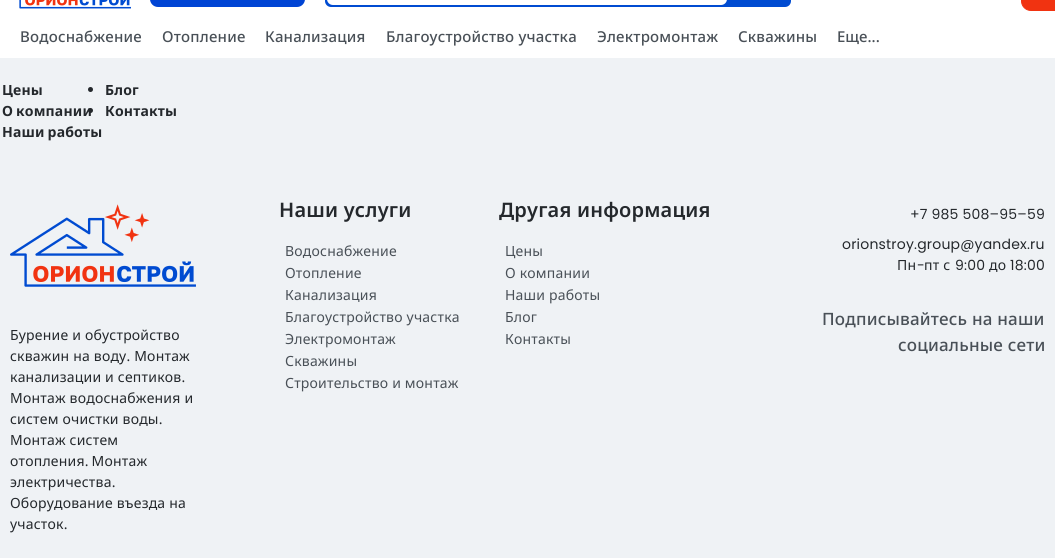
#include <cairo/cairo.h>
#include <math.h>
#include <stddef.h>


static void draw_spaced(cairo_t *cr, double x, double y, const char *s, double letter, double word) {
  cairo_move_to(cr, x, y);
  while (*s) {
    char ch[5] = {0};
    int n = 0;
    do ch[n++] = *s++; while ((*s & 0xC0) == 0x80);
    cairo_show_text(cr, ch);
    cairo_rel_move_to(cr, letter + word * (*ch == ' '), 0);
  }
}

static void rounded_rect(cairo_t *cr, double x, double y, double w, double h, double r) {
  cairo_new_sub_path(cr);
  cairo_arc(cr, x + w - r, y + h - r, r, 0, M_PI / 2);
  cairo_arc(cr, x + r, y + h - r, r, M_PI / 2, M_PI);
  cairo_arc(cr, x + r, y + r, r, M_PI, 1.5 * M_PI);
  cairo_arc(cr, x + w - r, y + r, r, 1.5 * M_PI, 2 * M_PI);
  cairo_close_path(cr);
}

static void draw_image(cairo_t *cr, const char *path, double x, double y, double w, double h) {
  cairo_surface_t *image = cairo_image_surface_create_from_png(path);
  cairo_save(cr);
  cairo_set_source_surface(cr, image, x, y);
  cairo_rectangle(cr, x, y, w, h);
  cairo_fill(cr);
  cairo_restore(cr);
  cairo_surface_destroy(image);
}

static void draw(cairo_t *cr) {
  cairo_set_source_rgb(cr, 239 / 255.0, 242 / 255.0, 245 / 255.0);
  cairo_paint(cr);
  cairo_set_source_rgb(cr, 1, 1, 1);
  cairo_rectangle(cr, 0, 0, 1055, 58);
  cairo_fill(cr);
  draw_image(cr, "images/1.png", 19, 0, 112, 9);
  cairo_set_source_rgb(cr, 0, 68 / 255.0, 212 / 255.0);
  rounded_rect(cr, 150, -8, 155, 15, 8);
  cairo_fill(cr);
  cairo_set_source_rgb(cr, 0, 75 / 255.0, 209 / 255.0);
  rounded_rect(cr, 325, -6, 466, 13, 6);
  cairo_fill(cr);
  cairo_set_source_rgb(cr, 1, 1, 1);
  rounded_rect(cr, 327, -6, 400, 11, 6);
  cairo_fill(cr);
  cairo_set_source_rgb(cr, 241 / 255.0, 51 / 255.0, 17 / 255.0);
  rounded_rect(cr, 1021.5, -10.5, 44, 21, 9.5);
  cairo_fill_preserve(cr);
  cairo_set_line_width(cr, 1);
  cairo_stroke(cr);
  cairo_set_source_rgb(cr, 36 / 255.0, 40 / 255.0, 44 / 255.0);
  cairo_arc(cr, 90.5, 89.5, 2.5, 0, 2 * M_PI);
  cairo_fill(cr);
  cairo_arc(cr, 90.5, 110.5, 2.5, 0, 2 * M_PI);
  cairo_fill(cr);
  draw_image(cr, "images/2.png", 10, 204, 186, 83);
  cairo_select_font_face(cr, "Noto Sans Medium", CAIRO_FONT_SLANT_NORMAL, CAIRO_FONT_WEIGHT_NORMAL);
  cairo_set_font_size(cr, 15);
  cairo_set_source_rgb(cr, 73 / 255.0, 80 / 255.0, 87 / 255.0);
  draw_spaced(cr, 20, 42, "Водоснабжение", 0.2, 0);
  draw_spaced(cr, 162, 42, "Отопление", 0.2, 0);
  draw_spaced(cr, 265, 42, "Канализация", 0.2, 0);
  draw_spaced(cr, 386, 42, "Благоустройство участка", 0.2, 0);
  draw_spaced(cr, 597, 42, "Электромонтаж", 0.2, 0);
  draw_spaced(cr, 738, 42, "Скважины", 0.2, 0);
  cairo_move_to(cr, 837, 42);
  cairo_show_text(cr, "Еще...");
  cairo_select_font_face(cr, "Noto Sans", CAIRO_FONT_SLANT_NORMAL, CAIRO_FONT_WEIGHT_BOLD);
  cairo_set_font_size(cr, 14);
  cairo_set_source_rgb(cr, 36 / 255.0, 40 / 255.0, 44 / 255.0);
  draw_spaced(cr, 2, 95, "Цены", 0.2, 0);
  draw_spaced(cr, 2, 116, "О компании", 0.2, -1);
  draw_spaced(cr, 2, 137, "Наши работы", 0.2, -1);
  draw_spaced(cr, 105, 95, "Блог", 0.2, 0);
  draw_spaced(cr, 105, 116, "Контакты", 0.2, 0);
  cairo_select_font_face(cr, "Noto Sans SemiBold", CAIRO_FONT_SLANT_NORMAL, CAIRO_FONT_WEIGHT_NORMAL);
  cairo_set_font_size(cr, 20);
  draw_spaced(cr, 279, 217, "Наши услуги", 0.2, 0);
  cairo_select_font_face(cr, "Noto Sans", CAIRO_FONT_SLANT_NORMAL, CAIRO_FONT_WEIGHT_NORMAL);
  cairo_set_font_size(cr, 14);
  cairo_set_source_rgb(cr, 73 / 255.0, 80 / 255.0, 87 / 255.0);
  draw_spaced(cr, 285, 256, "Водоснабжение", 0.2, 0);
  draw_spaced(cr, 285, 278, "Отопление", 0.2, 0);
  draw_spaced(cr, 285, 300, "Канализация", 0.2, 0);
  draw_spaced(cr, 285, 322, "Благоустройство участка", 0.2, 0);
  draw_spaced(cr, 285, 344, "Электромонтаж", 0.2, 0);
  draw_spaced(cr, 285, 366, "Скважины", 0.2, 0);
  draw_spaced(cr, 285, 388, "Строительство и монтаж", 0.2, 0);
  cairo_select_font_face(cr, "Noto Sans SemiBold", CAIRO_FONT_SLANT_NORMAL, CAIRO_FONT_WEIGHT_NORMAL);
  cairo_set_font_size(cr, 20);
  cairo_set_source_rgb(cr, 36 / 255.0, 40 / 255.0, 44 / 255.0);
  draw_spaced(cr, 499, 217, "Другая информация", 0.2, 0);
  cairo_select_font_face(cr, "Noto Sans", CAIRO_FONT_SLANT_NORMAL, CAIRO_FONT_WEIGHT_NORMAL);
  cairo_set_font_size(cr, 14);
  cairo_set_source_rgb(cr, 73 / 255.0, 80 / 255.0, 87 / 255.0);
  draw_spaced(cr, 505, 256, "Цены", 0.2, 0);
  draw_spaced(cr, 505, 278, "О компании", 0.2, 0);
  draw_spaced(cr, 505, 300, "Наши работы", 0.2, 0);
  draw_spaced(cr, 505, 322, "Блог", 0.2, 0);
  draw_spaced(cr, 505, 344, "Контакты", 0.2, 0);
  cairo_select_font_face(cr, "Poppins", CAIRO_FONT_SLANT_NORMAL, CAIRO_FONT_WEIGHT_NORMAL);
  cairo_set_source_rgb(cr, 36 / 255.0, 40 / 255.0, 44 / 255.0);
  draw_spaced(cr, 910, 219, "+7 985 508–95–59", 0.2, 0);
  draw_spaced(cr, 842, 249, "orionstroy.group@yandex.ru", 0.2, 0);
  cairo_select_font_face(cr, "Noto Sans", CAIRO_FONT_SLANT_NORMAL, CAIRO_FONT_WEIGHT_NORMAL);
  draw_spaced(cr, 897, 270, "Пн", 0.2, 0);
  cairo_select_font_face(cr, "Poppins", CAIRO_FONT_SLANT_NORMAL, CAIRO_FONT_WEIGHT_NORMAL);
  draw_spaced(cr, 917, 270, "-", 0.2, 0);
  cairo_select_font_face(cr, "Noto Sans", CAIRO_FONT_SLANT_NORMAL, CAIRO_FONT_WEIGHT_NORMAL);
  draw_spaced(cr, 924, 270, "пт с", 0.2, 0);
  cairo_select_font_face(cr, "Poppins", CAIRO_FONT_SLANT_NORMAL, CAIRO_FONT_WEIGHT_NORMAL);
  draw_spaced(cr, 955, 270, "9:00", 0.2, 0);
  cairo_select_font_face(cr, "Noto Sans", CAIRO_FONT_SLANT_NORMAL, CAIRO_FONT_WEIGHT_NORMAL);
  draw_spaced(cr, 989, 270, "до", 0.2, 0);
  cairo_select_font_face(cr, "Poppins", CAIRO_FONT_SLANT_NORMAL, CAIRO_FONT_WEIGHT_NORMAL);
  draw_spaced(cr, 1010, 270, "18:00", 0.2, 0);
  cairo_select_font_face(cr, "Noto Sans Medium", CAIRO_FONT_SLANT_NORMAL, CAIRO_FONT_WEIGHT_NORMAL);
  cairo_set_font_size(cr, 17);
  cairo_set_source_rgb(cr, 73 / 255.0, 80 / 255.0, 87 / 255.0);
  draw_spaced(cr, 822, 325, "Подписывайтесь на наши", 0.2, 0);
  draw_spaced(cr, 898, 351, "социальные сети", 0.2, 0);
  cairo_select_font_face(cr, "Noto Sans", CAIRO_FONT_SLANT_NORMAL, CAIRO_FONT_WEIGHT_NORMAL);
  cairo_set_font_size(cr, 14);
  cairo_set_source_rgb(cr, 36 / 255.0, 40 / 255.0, 44 / 255.0);
  draw_spaced(cr, 10, 340, "Бурение и обустройство", 0.2, 0);
  draw_spaced(cr, 10, 361, "скважин на воду. Монтаж", 0.2, 0);
  draw_spaced(cr, 10, 382, "канализации и септиков.", 0.2, 0);
  draw_spaced(cr, 10, 403, "Монтаж водоснабжения и", 0.2, 0);
  draw_spaced(cr, 10, 424, "систем очистки воды.", 0.2, 0);
  draw_spaced(cr, 10, 445, "Монтаж систем", 0.2, 0);
  draw_spaced(cr, 10, 466, "отопления. Монтаж", 0.2, -1);
  draw_spaced(cr, 10, 487, "электричества.", 0.2, 0);
  draw_spaced(cr, 10, 508, "Оборудование въезда на", 0.2, 0);
  draw_spaced(cr, 10, 529, "участок.", 0.2, 0);
}

int main(void) {
  cairo_surface_t *surface = cairo_image_surface_create(CAIRO_FORMAT_RGB24, 1055, 558);
  cairo_t *cr = cairo_create(surface);
  cairo_font_options_t *options = cairo_font_options_create();
  cairo_font_options_set_hint_metrics(options, CAIRO_HINT_METRICS_OFF);
  cairo_font_options_set_hint_style(options, CAIRO_HINT_STYLE_NONE);
  cairo_set_font_options(cr, options);
  cairo_set_miter_limit(cr, 4);
  draw(cr);
  cairo_surface_write_to_png(surface, "out.png");
  cairo_font_options_destroy(options);
  cairo_destroy(cr);
  cairo_surface_destroy(surface);
  return 0;
}
